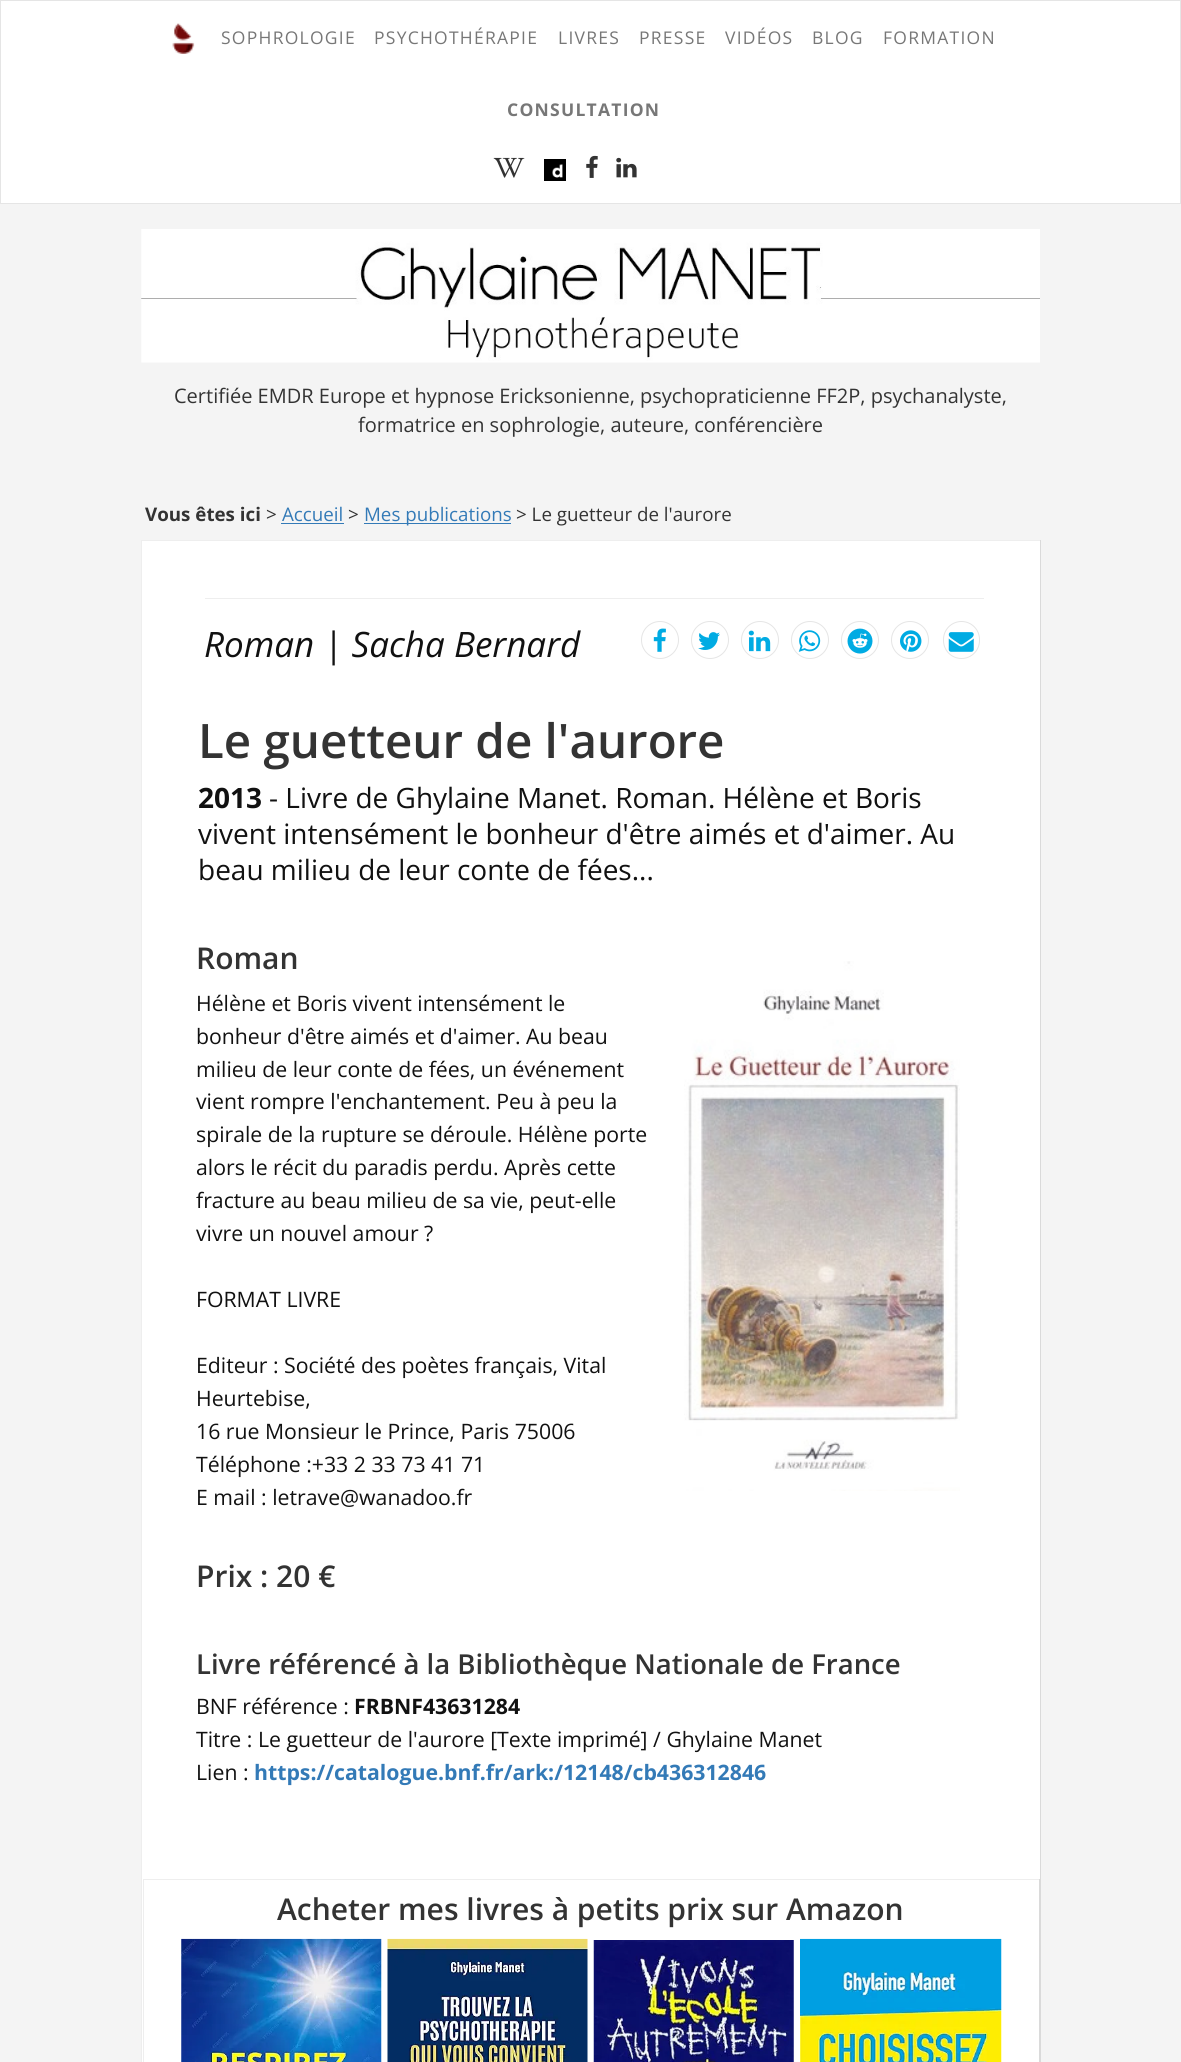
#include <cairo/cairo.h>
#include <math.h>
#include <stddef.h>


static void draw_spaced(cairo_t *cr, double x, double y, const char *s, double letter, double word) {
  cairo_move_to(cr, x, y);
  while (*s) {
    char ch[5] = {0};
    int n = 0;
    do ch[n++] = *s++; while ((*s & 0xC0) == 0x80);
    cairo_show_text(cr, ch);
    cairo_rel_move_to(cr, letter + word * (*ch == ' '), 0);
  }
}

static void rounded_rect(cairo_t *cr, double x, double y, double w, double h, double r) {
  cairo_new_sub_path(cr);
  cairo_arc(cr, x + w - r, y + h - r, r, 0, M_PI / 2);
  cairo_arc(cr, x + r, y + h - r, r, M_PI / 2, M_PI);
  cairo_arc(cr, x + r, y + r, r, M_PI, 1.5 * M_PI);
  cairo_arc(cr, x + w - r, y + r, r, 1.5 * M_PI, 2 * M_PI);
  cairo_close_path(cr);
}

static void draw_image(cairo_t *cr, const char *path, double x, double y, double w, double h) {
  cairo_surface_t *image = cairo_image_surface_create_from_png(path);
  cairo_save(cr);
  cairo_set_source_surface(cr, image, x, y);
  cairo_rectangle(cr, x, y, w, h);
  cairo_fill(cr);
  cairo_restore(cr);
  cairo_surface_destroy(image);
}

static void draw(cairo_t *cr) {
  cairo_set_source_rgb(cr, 244 / 255.0, 244 / 255.0, 244 / 255.0);
  cairo_paint(cr);
  cairo_set_source_rgb(cr, 1, 1, 1);
  cairo_rectangle(cr, 0.5, 0.5, 1180, 203);
  cairo_fill_preserve(cr);
  cairo_set_source_rgb(cr, 229 / 255.0, 229 / 255.0, 229 / 255.0);
  cairo_set_line_width(cr, 1);
  cairo_stroke(cr);
  draw_image(cr, "images/1.png", 172, 23, 23, 31);
  draw_image(cr, "images/2.png", 493, 157, 32, 21);
  draw_image(cr, "images/3.png", 544, 159, 22, 22);
  draw_image(cr, "images/4.png", 586, 155, 12, 23);
  draw_image(cr, "images/5.png", 616, 157, 21, 21);
  draw_image(cr, "images/6.png", 141, 229, 899, 134);
  cairo_set_source_rgb(cr, 51 / 255.0, 122 / 255.0, 183 / 255.0);
  cairo_rectangle(cr, 281, 523, 63, 1);
  cairo_fill(cr);
  cairo_rectangle(cr, 364, 523, 147, 1);
  cairo_fill(cr);
  cairo_set_source_rgb(cr, 1, 1, 1);
  cairo_rectangle(cr, 142, 541, 898, 1521);
  cairo_fill(cr);
  cairo_set_source_rgb(cr, 238 / 255.0, 238 / 255.0, 238 / 255.0);
  cairo_rectangle(cr, 141, 540, 900, 1);
  cairo_fill(cr);
  cairo_set_source_rgb(cr, 218 / 255.0, 218 / 255.0, 218 / 255.0);
  cairo_rectangle(cr, 1040, 540, 1, 1522);
  cairo_fill(cr);
  cairo_set_source_rgb(cr, 238 / 255.0, 238 / 255.0, 238 / 255.0);
  cairo_rectangle(cr, 141, 540, 1, 1522);
  cairo_fill(cr);
  cairo_rectangle(cr, 205, 598, 779, 1);
  cairo_fill(cr);
  cairo_arc(cr, 660, 640, 18.5, 0, 2 * M_PI);
  cairo_set_source_rgb(cr, 229 / 255.0, 229 / 255.0, 229 / 255.0);
  cairo_stroke(cr);
  draw_image(cr, "images/7.png", 653, 628, 13, 24);
  cairo_arc(cr, 710, 640, 18.5, 0, 2 * M_PI);
  cairo_stroke(cr);
  draw_image(cr, "images/8.png", 698, 632, 22, 18);
  cairo_arc(cr, 760, 640, 18.5, 0, 2 * M_PI);
  cairo_stroke(cr);
  draw_image(cr, "images/9.png", 748, 630, 23, 22);
  cairo_arc(cr, 810, 640, 18.5, 0, 2 * M_PI);
  cairo_stroke(cr);
  draw_image(cr, "images/10.png", 798, 630, 23, 22);
  cairo_arc(cr, 860, 640, 18.5, 0, 2 * M_PI);
  cairo_stroke(cr);
  draw_image(cr, "images/11.png", 847, 628, 26, 26);
  cairo_arc(cr, 910, 640, 18.5, 0, 2 * M_PI);
  cairo_stroke(cr);
  draw_image(cr, "images/12.png", 900, 630, 22, 22);
  rounded_rect(cr, 943.5, 621.5, 36, 37, 18);
  cairo_stroke(cr);
  draw_image(cr, "images/13.png", 948, 632, 26, 20);
  draw_image(cr, "images/14.png", 684, 961, 276, 530);
  cairo_set_source_rgb(cr, 238 / 255.0, 238 / 255.0, 238 / 255.0);
  cairo_rectangle(cr, 143, 1879, 897, 1);
  cairo_fill(cr);
  cairo_set_source_rgb(cr, 218 / 255.0, 218 / 255.0, 218 / 255.0);
  cairo_rectangle(cr, 1039, 1879, 1, 183);
  cairo_fill(cr);
  cairo_set_source_rgb(cr, 238 / 255.0, 238 / 255.0, 238 / 255.0);
  cairo_rectangle(cr, 143, 1879, 1, 183);
  cairo_fill(cr);
  draw_image(cr, "images/15.png", 181, 1938, 201, 124);
  draw_image(cr, "images/16.png", 387, 1938, 201, 124);
  draw_image(cr, "images/17.png", 593, 1940, 201, 122);
  draw_image(cr, "images/18.png", 800, 1938, 202, 124);
  cairo_select_font_face(cr, "Open Sans", CAIRO_FONT_SLANT_NORMAL, CAIRO_FONT_WEIGHT_NORMAL);
  cairo_set_font_size(cr, 17.5);
  cairo_set_source_rgb(cr, 119 / 255.0, 119 / 255.0, 119 / 255.0);
  draw_spaced(cr, 221, 44, "SOPHROLOGIE", 1.25, 0);
  draw_spaced(cr, 374, 44, "PSYCHOTHÉRAPIE", 1.25, 0);
  draw_spaced(cr, 558, 44, "LIVRES", 1.25, 0);
  draw_spaced(cr, 639, 44, "PRESSE", 1.25, 0);
  draw_spaced(cr, 725, 44, "VIDÉOS", 1.25, 0);
  draw_spaced(cr, 812, 44, "BLOG", 1.25, 0);
  draw_spaced(cr, 883, 44, "FORMATION", 1.25, 0);
  cairo_select_font_face(cr, "Open Sans", CAIRO_FONT_SLANT_NORMAL, CAIRO_FONT_WEIGHT_BOLD);
  draw_spaced(cr, 507, 116, "CONSULTATION", 1.25, 0);
  cairo_select_font_face(cr, "Open Sans", CAIRO_FONT_SLANT_NORMAL, CAIRO_FONT_WEIGHT_NORMAL);
  cairo_set_font_size(cr, 20);
  cairo_set_source_rgb(cr, 51 / 255.0, 51 / 255.0, 51 / 255.0);
  cairo_move_to(cr, 174, 403);
  cairo_show_text(cr, "Certifiée EMDR Europe et hypnose Ericksonienne, psychopraticienne FF2P, psychanalyste,");
  cairo_move_to(cr, 358, 432);
  cairo_show_text(cr, "formatrice en sophrologie, auteure, conférencière");
  cairo_select_font_face(cr, "Open Sans", CAIRO_FONT_SLANT_NORMAL, CAIRO_FONT_WEIGHT_BOLD);
  cairo_set_font_size(cr, 18.75);
  cairo_move_to(cr, 145, 521);
  cairo_show_text(cr, "Vous êtes ici");
  cairo_select_font_face(cr, "Open Sans", CAIRO_FONT_SLANT_NORMAL, CAIRO_FONT_WEIGHT_NORMAL);
  cairo_move_to(cr, 266, 521);
  cairo_show_text(cr, ">");
  cairo_set_source_rgb(cr, 51 / 255.0, 122 / 255.0, 183 / 255.0);
  cairo_move_to(cr, 282, 521);
  cairo_show_text(cr, "Accueil");
  cairo_set_source_rgb(cr, 51 / 255.0, 51 / 255.0, 51 / 255.0);
  cairo_move_to(cr, 348, 521);
  cairo_show_text(cr, ">");
  cairo_set_source_rgb(cr, 51 / 255.0, 122 / 255.0, 183 / 255.0);
  cairo_move_to(cr, 364, 521);
  cairo_show_text(cr, "Mes publications");
  cairo_set_source_rgb(cr, 51 / 255.0, 51 / 255.0, 51 / 255.0);
  cairo_move_to(cr, 516, 521);
  cairo_show_text(cr, "> Le guetteur de l'aurore");
  cairo_select_font_face(cr, "Open Sans", CAIRO_FONT_SLANT_ITALIC, CAIRO_FONT_WEIGHT_NORMAL);
  cairo_set_font_size(cr, 35);
  cairo_set_source_rgb(cr, 17 / 255.0, 17 / 255.0, 17 / 255.0);
  cairo_move_to(cr, 204, 657);
  cairo_show_text(cr, "Roman | Sacha Bernard");
  cairo_select_font_face(cr, "Open Sans SemiBold", CAIRO_FONT_SLANT_NORMAL, CAIRO_FONT_WEIGHT_NORMAL);
  cairo_set_font_size(cr, 47.5);
  cairo_set_source_rgb(cr, 51 / 255.0, 51 / 255.0, 51 / 255.0);
  cairo_move_to(cr, 198, 758);
  cairo_show_text(cr, "Le guetteur de l'aurore");
  cairo_select_font_face(cr, "Open Sans", CAIRO_FONT_SLANT_NORMAL, CAIRO_FONT_WEIGHT_BOLD);
  cairo_set_font_size(cr, 28);
  cairo_set_source_rgb(cr, 17 / 255.0, 17 / 255.0, 17 / 255.0);
  cairo_move_to(cr, 198, 808);
  cairo_show_text(cr, "2013");
  cairo_select_font_face(cr, "Open Sans", CAIRO_FONT_SLANT_NORMAL, CAIRO_FONT_WEIGHT_NORMAL);
  cairo_move_to(cr, 269, 808);
  cairo_show_text(cr, "- Livre de Ghylaine Manet. Roman. Hélène et Boris");
  cairo_move_to(cr, 198, 844);
  cairo_show_text(cr, "vivent intensément le bonheur d'être aimés et d'aimer. Au");
  cairo_move_to(cr, 198, 880);
  cairo_show_text(cr, "beau milieu de leur conte de fées...");
  cairo_select_font_face(cr, "Open Sans SemiBold", CAIRO_FONT_SLANT_NORMAL, CAIRO_FONT_WEIGHT_NORMAL);
  cairo_set_font_size(cr, 30);
  cairo_set_source_rgb(cr, 51 / 255.0, 51 / 255.0, 51 / 255.0);
  cairo_move_to(cr, 196, 969);
  cairo_show_text(cr, "Roman");
  cairo_select_font_face(cr, "Open Sans", CAIRO_FONT_SLANT_NORMAL, CAIRO_FONT_WEIGHT_NORMAL);
  cairo_set_font_size(cr, 21.25);
  cairo_set_source_rgb(cr, 17 / 255.0, 17 / 255.0, 17 / 255.0);
  cairo_move_to(cr, 196, 1011);
  cairo_show_text(cr, "Hélène et Boris vivent intensément le");
  cairo_move_to(cr, 196, 1044);
  cairo_show_text(cr, "bonheur d'être aimés et d'aimer. Au beau");
  cairo_move_to(cr, 196, 1077);
  cairo_show_text(cr, "milieu de leur conte de fées, un événement");
  cairo_move_to(cr, 196, 1109);
  cairo_show_text(cr, "vient rompre l'enchantement. Peu à peu la");
  cairo_move_to(cr, 196, 1142);
  cairo_show_text(cr, "spirale de la rupture se déroule. Hélène porte");
  cairo_move_to(cr, 196, 1175);
  cairo_show_text(cr, "alors le récit du paradis perdu. Après cette");
  cairo_move_to(cr, 196, 1208);
  cairo_show_text(cr, "fracture au beau milieu de sa vie, peut-elle");
  cairo_move_to(cr, 196, 1241);
  cairo_show_text(cr, "vivre un nouvel amour ?");
  cairo_move_to(cr, 196, 1307);
  cairo_show_text(cr, "FORMAT LIVRE");
  cairo_move_to(cr, 196, 1373);
  cairo_show_text(cr, "Editeur : Société des poètes français, Vital");
  cairo_move_to(cr, 196, 1406);
  cairo_show_text(cr, "Heurtebise,");
  cairo_move_to(cr, 196, 1439);
  cairo_show_text(cr, "16 rue Monsieur le Prince, Paris 75006");
  cairo_move_to(cr, 196, 1472);
  cairo_show_text(cr, "Téléphone :+33 2 33 73 41 71");
  cairo_move_to(cr, 196, 1505);
  cairo_show_text(cr, "E mail : letrave@wanadoo.fr");
  cairo_select_font_face(cr, "Open Sans SemiBold", CAIRO_FONT_SLANT_NORMAL, CAIRO_FONT_WEIGHT_NORMAL);
  cairo_set_font_size(cr, 30);
  cairo_set_source_rgb(cr, 51 / 255.0, 51 / 255.0, 51 / 255.0);
  cairo_move_to(cr, 196, 1587);
  cairo_show_text(cr, "Prix : 20 €");
  cairo_set_font_size(cr, 27.5);
  cairo_move_to(cr, 196, 1674);
  cairo_show_text(cr, "Livre référencé à la Bibliothèque Nationale de France");
  cairo_select_font_face(cr, "Open Sans", CAIRO_FONT_SLANT_NORMAL, CAIRO_FONT_WEIGHT_NORMAL);
  cairo_set_font_size(cr, 21.25);
  cairo_set_source_rgb(cr, 17 / 255.0, 17 / 255.0, 17 / 255.0);
  cairo_move_to(cr, 196, 1714);
  cairo_show_text(cr, "BNF référence :");
  cairo_select_font_face(cr, "Open Sans", CAIRO_FONT_SLANT_NORMAL, CAIRO_FONT_WEIGHT_BOLD);
  cairo_move_to(cr, 354, 1714);
  cairo_show_text(cr, "FRBNF43631284");
  cairo_select_font_face(cr, "Open Sans", CAIRO_FONT_SLANT_NORMAL, CAIRO_FONT_WEIGHT_NORMAL);
  cairo_move_to(cr, 196, 1747);
  cairo_show_text(cr, "Titre : Le guetteur de l'aurore [Texte imprimé] / Ghylaine Manet");
  cairo_move_to(cr, 196, 1780);
  cairo_show_text(cr, "Lien :");
  cairo_select_font_face(cr, "Open Sans", CAIRO_FONT_SLANT_NORMAL, CAIRO_FONT_WEIGHT_BOLD);
  cairo_set_source_rgb(cr, 51 / 255.0, 122 / 255.0, 183 / 255.0);
  cairo_move_to(cr, 254, 1780);
  cairo_show_text(cr, "https://catalogue.bnf.fr/ark:/12148/cb436312846");
  cairo_select_font_face(cr, "Open Sans SemiBold", CAIRO_FONT_SLANT_NORMAL, CAIRO_FONT_WEIGHT_NORMAL);
  cairo_set_font_size(cr, 30);
  cairo_set_source_rgb(cr, 51 / 255.0, 51 / 255.0, 51 / 255.0);
  cairo_move_to(cr, 277, 1920);
  cairo_show_text(cr, "Acheter mes livres à petits prix sur Amazon");
}

int main(void) {
  cairo_surface_t *surface = cairo_image_surface_create(CAIRO_FORMAT_RGB24, 1181, 2062);
  cairo_t *cr = cairo_create(surface);
  cairo_font_options_t *options = cairo_font_options_create();
  cairo_font_options_set_hint_metrics(options, CAIRO_HINT_METRICS_OFF);
  cairo_font_options_set_hint_style(options, CAIRO_HINT_STYLE_NONE);
  cairo_set_font_options(cr, options);
  cairo_set_miter_limit(cr, 4);
  draw(cr);
  cairo_surface_write_to_png(surface, "out.png");
  cairo_font_options_destroy(options);
  cairo_destroy(cr);
  cairo_surface_destroy(surface);
  return 0;
}
